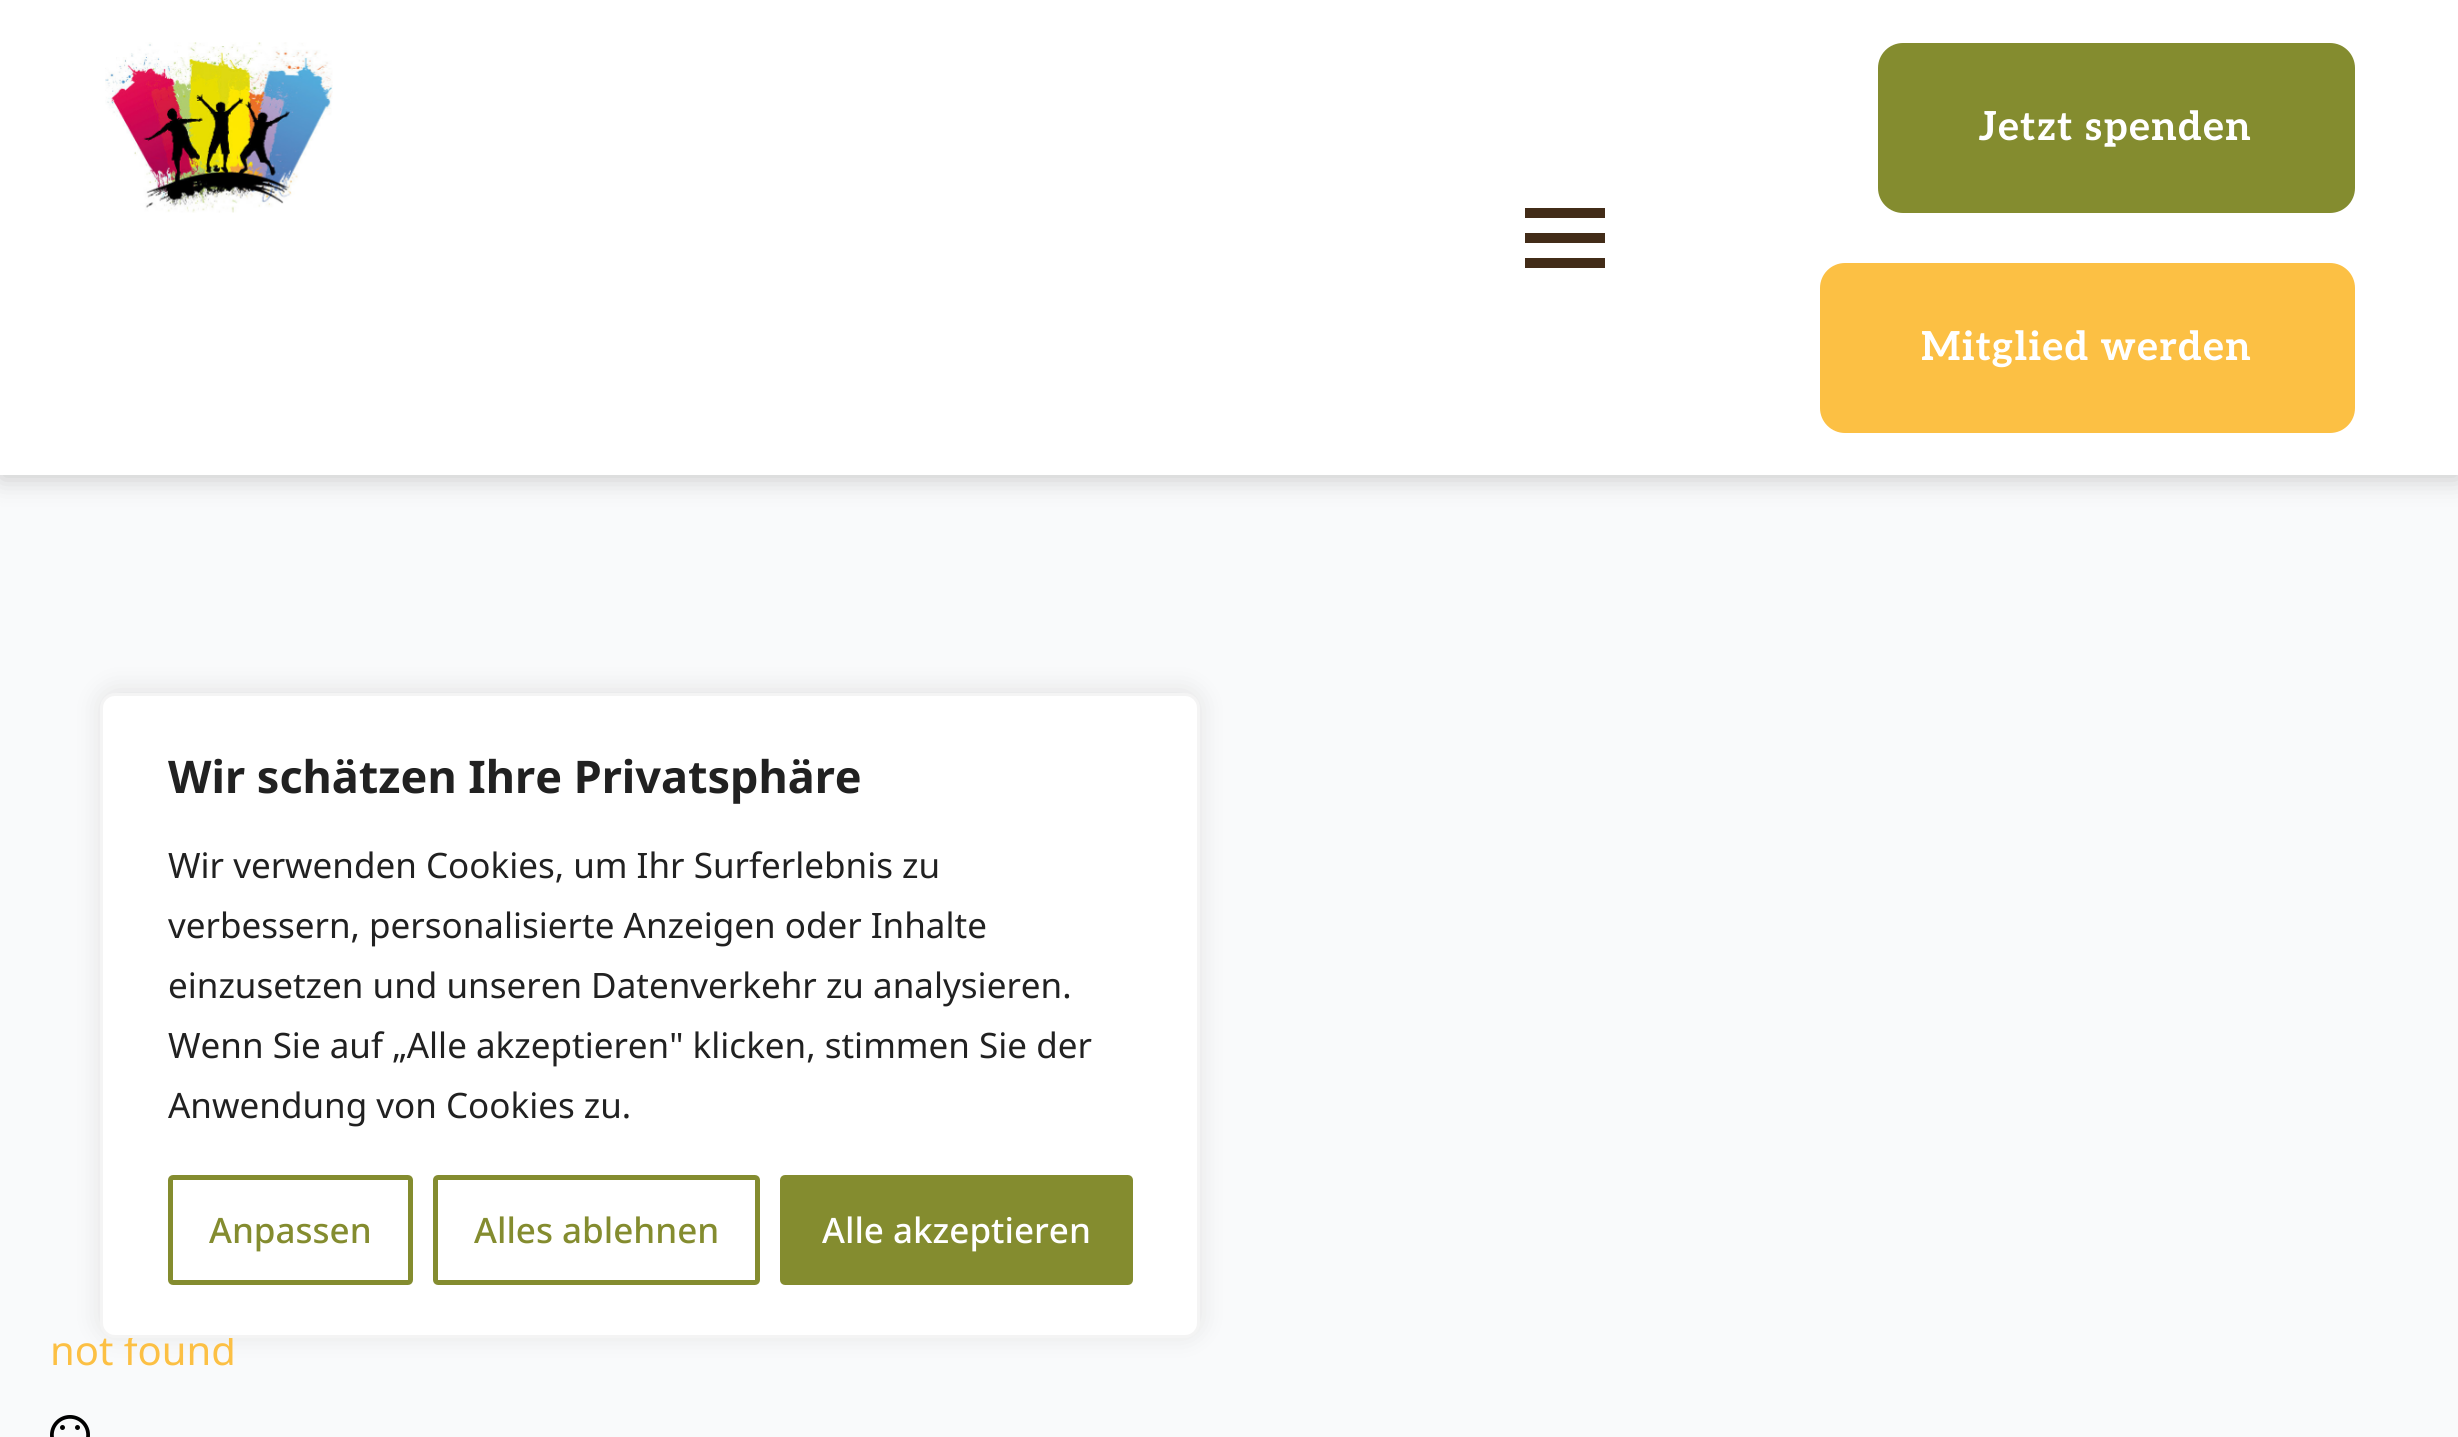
#include <cairo/cairo.h>
#include <math.h>
#include <stddef.h>


static void draw_spaced(cairo_t *cr, double x, double y, const char *s, double letter, double word) {
  cairo_move_to(cr, x, y);
  while (*s) {
    char ch[5] = {0};
    int n = 0;
    do ch[n++] = *s++; while ((*s & 0xC0) == 0x80);
    cairo_show_text(cr, ch);
    cairo_rel_move_to(cr, letter + word * (*ch == ' '), 0);
  }
}

static void rounded_rect(cairo_t *cr, double x, double y, double w, double h, double r) {
  cairo_new_sub_path(cr);
  cairo_arc(cr, x + w - r, y + h - r, r, 0, M_PI / 2);
  cairo_arc(cr, x + r, y + h - r, r, M_PI / 2, M_PI);
  cairo_arc(cr, x + r, y + r, r, M_PI, 1.5 * M_PI);
  cairo_arc(cr, x + w - r, y + r, r, 1.5 * M_PI, 2 * M_PI);
  cairo_close_path(cr);
}

static void draw_shadow(cairo_t *cr, double x, double y, double w, double h, double r, double blur, double alpha) {
  cairo_push_group_with_content(cr, CAIRO_CONTENT_ALPHA);
  cairo_set_operator(cr, CAIRO_OPERATOR_SOURCE);
  for (int i = 15; i >= -15 && fmin(w, h) + blur * i / 3 > 0; i -= 2) {
    double e = blur * i / 6;
    cairo_set_source_rgba(cr, 0, 0, 0, alpha * erfc((i - 1) / 8.5) / 2);
    rounded_rect(cr, x - e, y - e, w + 2 * e, h + 2 * e, fmax(0, fmin(r + e + blur * .6, fmin(w, h) / 2 + e)));
    cairo_fill(cr);
  }
  cairo_pattern_t *soft = cairo_pop_group(cr);
  cairo_mask(cr, soft);
  cairo_pattern_destroy(soft);
}

static void draw_image(cairo_t *cr, const char *path, double x, double y, double w, double h) {
  cairo_surface_t *image = cairo_image_surface_create_from_png(path);
  cairo_save(cr);
  cairo_set_source_surface(cr, image, x, y);
  cairo_rectangle(cr, x, y, w, h);
  cairo_fill(cr);
  cairo_restore(cr);
  cairo_surface_destroy(image);
}

static void draw(cairo_t *cr) {
  cairo_set_source_rgb(cr, 249 / 255.0, 250 / 255.0, 251 / 255.0);
  cairo_paint(cr);
  cairo_set_source_rgb(cr, 12 / 255.0, 12 / 255.0, 12 / 255.0);
  draw_shadow(cr, 0, 5, 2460, 475, 0, 12.5, 0.19);
  cairo_set_source_rgb(cr, 1, 1, 1);
  cairo_rectangle(cr, 0, 0, 2458, 475);
  cairo_fill(cr);
  draw_image(cr, "images/1.png", 105, 42, 228, 171);
  cairo_set_source_rgb(cr, 66 / 255.0, 44 / 255.0, 24 / 255.0);
  cairo_rectangle(cr, 1525, 233, 80, 10);
  cairo_fill(cr);
  cairo_rectangle(cr, 1525, 208, 80, 10);
  cairo_fill(cr);
  cairo_rectangle(cr, 1525, 258, 80, 10);
  cairo_fill(cr);
  cairo_set_source_rgb(cr, 132 / 255.0, 140 / 255.0, 47 / 255.0);
  rounded_rect(cr, 1878, 43, 477, 170, 25);
  cairo_fill(cr);
  cairo_set_source_rgb(cr, 252 / 255.0, 192 / 255.0, 68 / 255.0);
  rounded_rect(cr, 1820, 263, 535, 170, 25);
  cairo_fill(cr);
  cairo_set_source_rgb(cr, 172 / 255.0, 171 / 255.0, 171 / 255.0);
  draw_shadow(cr, 100, 690, 1100, 645, 15, 12.5, 0.3);
  draw_image(cr, "images/2.png", 50, 1415, 40, 22);
  cairo_select_font_face(cr, "Aleo", CAIRO_FONT_SLANT_NORMAL, CAIRO_FONT_WEIGHT_BOLD);
  cairo_set_font_size(cr, 40);
  cairo_set_source_rgb(cr, 1, 1, 1);
  draw_spaced(cr, 1979, 140, "Jetzt spenden", 1.25, 0);
  draw_spaced(cr, 1921, 360, "Mitglied werden", 1.25, 0);
  cairo_select_font_face(cr, "Noto Sans", CAIRO_FONT_SLANT_NORMAL, CAIRO_FONT_WEIGHT_NORMAL);
  cairo_set_source_rgb(cr, 252 / 255.0, 192 / 255.0, 68 / 255.0);
  cairo_move_to(cr, 50, 1365);
  cairo_show_text(cr, "not found");
  cairo_set_source_rgb(cr, 1, 1, 1);
  rounded_rect(cr, 101.5, 694.5, 1097, 642, 13.5);
  cairo_fill_preserve(cr);
  cairo_set_source_rgb(cr, 244 / 255.0, 244 / 255.0, 244 / 255.0);
  cairo_set_line_width(cr, 3);
  cairo_stroke(cr);
  cairo_set_source_rgb(cr, 132 / 255.0, 140 / 255.0, 47 / 255.0);
  rounded_rect(cr, 782.5, 1177.5, 348, 105, 2.5);
  cairo_fill_preserve(cr);
  cairo_set_line_width(cr, 5);
  cairo_stroke(cr);
  cairo_select_font_face(cr, "Noto Sans Medium", CAIRO_FONT_SLANT_NORMAL, CAIRO_FONT_WEIGHT_NORMAL);
  cairo_set_font_size(cr, 35);
  cairo_set_source_rgb(cr, 1, 1, 1);
  cairo_move_to(cr, 822, 1243);
  cairo_show_text(cr, "Alle akzeptieren");
  rounded_rect(cr, 435.5, 1177.5, 322, 105, 2.5);
  cairo_set_source_rgb(cr, 132 / 255.0, 140 / 255.0, 47 / 255.0);
  cairo_stroke(cr);
  cairo_move_to(cr, 474, 1243);
  cairo_show_text(cr, "Alles ablehnen");
  rounded_rect(cr, 170.5, 1177.5, 240, 105, 2.5);
  cairo_stroke(cr);
  cairo_move_to(cr, 209, 1243);
  cairo_show_text(cr, "Anpassen");
  cairo_select_font_face(cr, "Noto Sans", CAIRO_FONT_SLANT_NORMAL, CAIRO_FONT_WEIGHT_NORMAL);
  cairo_set_source_rgb(cr, 33 / 255.0, 33 / 255.0, 33 / 255.0);
  cairo_move_to(cr, 168, 1118);
  cairo_show_text(cr, "Anwendung von Cookies zu.");
  cairo_move_to(cr, 168, 1058);
  cairo_show_text(cr, "Wenn Sie auf „Alle akzeptieren\" klicken, stimmen Sie der");
  cairo_move_to(cr, 168, 998);
  cairo_show_text(cr, "einzusetzen und unseren Datenverkehr zu analysieren.");
  cairo_move_to(cr, 168, 938);
  cairo_show_text(cr, "verbessern, personalisierte Anzeigen oder Inhalte");
  cairo_move_to(cr, 168, 878);
  cairo_show_text(cr, "Wir verwenden Cookies, um Ihr Surferlebnis zu");
  cairo_select_font_face(cr, "Noto Sans", CAIRO_FONT_SLANT_NORMAL, CAIRO_FONT_WEIGHT_BOLD);
  cairo_set_font_size(cr, 45);
  cairo_move_to(cr, 168, 793);
  cairo_show_text(cr, "Wir schätzen Ihre Privatsphäre");
}

int main(void) {
  cairo_surface_t *surface = cairo_image_surface_create(CAIRO_FORMAT_RGB24, 2458, 1437);
  cairo_t *cr = cairo_create(surface);
  cairo_font_options_t *options = cairo_font_options_create();
  cairo_font_options_set_hint_metrics(options, CAIRO_HINT_METRICS_OFF);
  cairo_font_options_set_hint_style(options, CAIRO_HINT_STYLE_NONE);
  cairo_set_font_options(cr, options);
  cairo_set_miter_limit(cr, 4);
  draw(cr);
  cairo_surface_write_to_png(surface, "out.png");
  cairo_font_options_destroy(options);
  cairo_destroy(cr);
  cairo_surface_destroy(surface);
  return 0;
}
